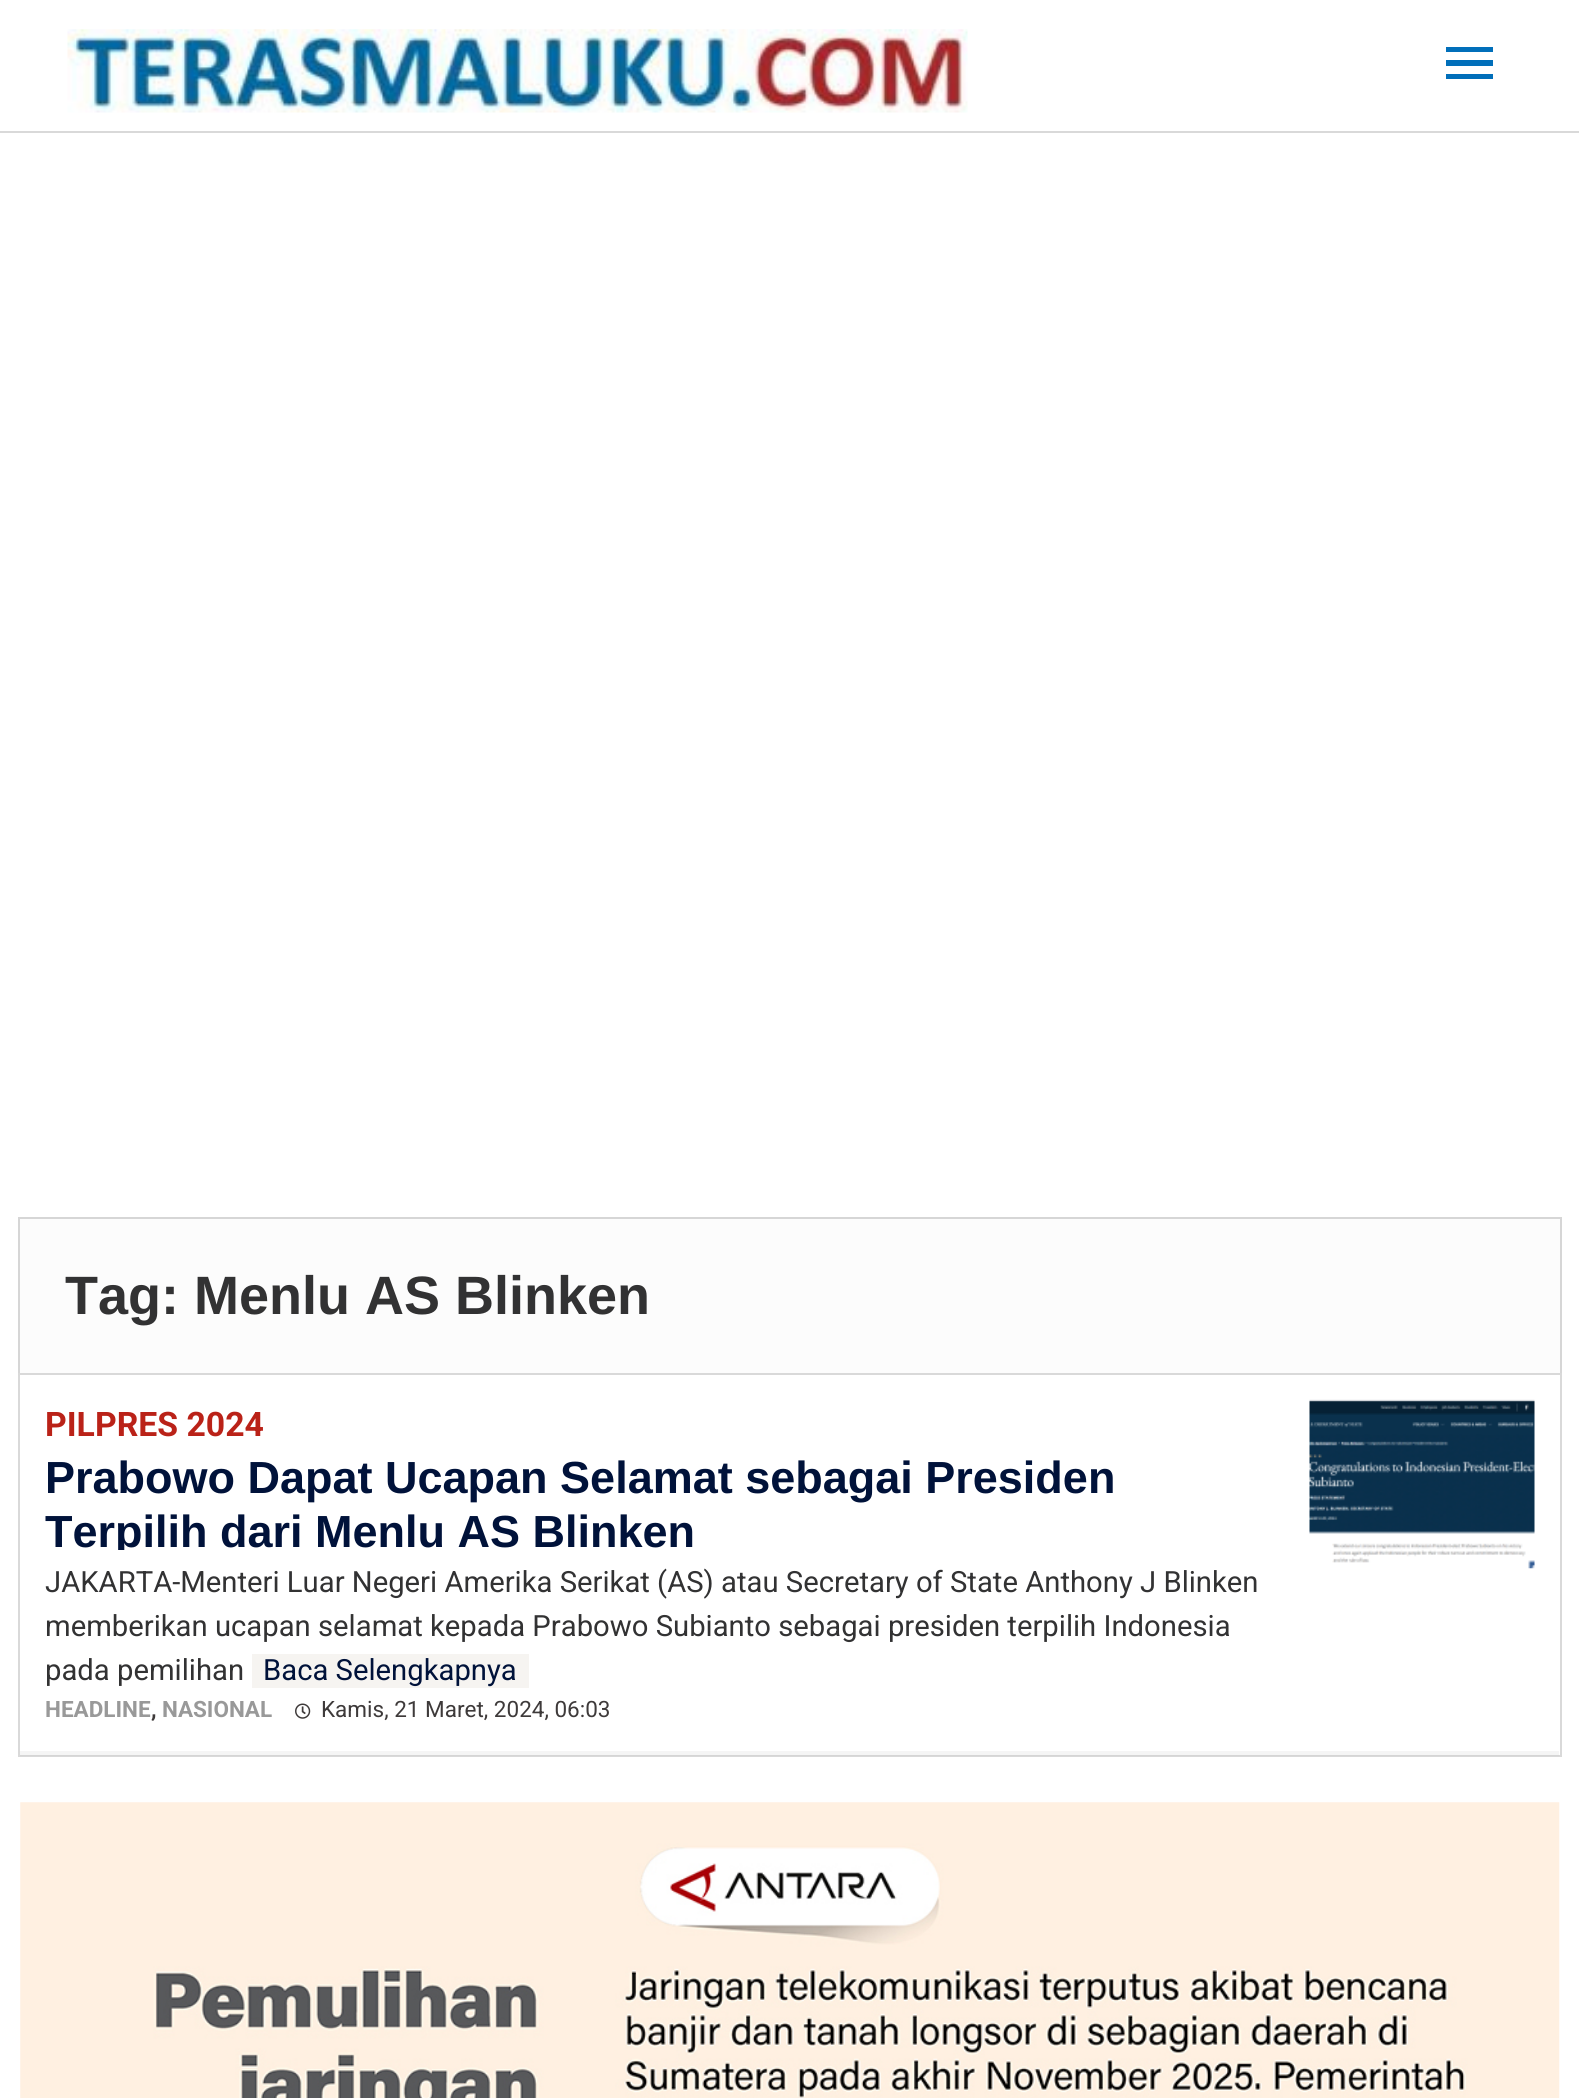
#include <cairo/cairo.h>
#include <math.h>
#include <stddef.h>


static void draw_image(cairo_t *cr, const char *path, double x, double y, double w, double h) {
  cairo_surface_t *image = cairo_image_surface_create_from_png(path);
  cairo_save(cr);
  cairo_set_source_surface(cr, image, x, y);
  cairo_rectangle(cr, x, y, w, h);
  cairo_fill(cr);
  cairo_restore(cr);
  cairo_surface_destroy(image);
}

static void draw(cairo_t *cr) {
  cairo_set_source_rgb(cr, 1, 1, 1);
  cairo_paint(cr);
  cairo_set_source_rgb(cr, 217 / 255.0, 217 / 255.0, 217 / 255.0);
  cairo_rectangle(cr, 0, 131, 1579, 2);
  cairo_fill(cr);
  draw_image(cr, "images/1.png", 67, 29, 901, 84);
  cairo_set_source_rgb(cr, 1 / 255.0, 111 / 255.0, 186 / 255.0);
  cairo_new_path(cr);
  cairo_move_to(cr, 1446, 79);
  cairo_line_to(cr, 1493, 79);
  cairo_line_to(cr, 1493, 74);
  cairo_line_to(cr, 1446, 74);
  cairo_close_path(cr);
  cairo_move_to(cr, 1446, 66);
  cairo_line_to(cr, 1493, 66);
  cairo_line_to(cr, 1493, 60);
  cairo_line_to(cr, 1446, 60);
  cairo_close_path(cr);
  cairo_move_to(cr, 1446, 47);
  cairo_line_to(cr, 1446, 52);
  cairo_line_to(cr, 1493, 52);
  cairo_line_to(cr, 1493, 47);
  cairo_close_path(cr);
  cairo_fill(cr);
  cairo_set_source_rgb(cr, 252 / 255.0, 252 / 255.0, 252 / 255.0);
  cairo_rectangle(cr, 19, 1218, 1542, 156);
  cairo_fill_preserve(cr);
  cairo_set_source_rgb(cr, 214 / 255.0, 214 / 255.0, 214 / 255.0);
  cairo_stroke(cr);
  cairo_rectangle(cr, 19, 1374, 1542, 382);
  cairo_set_source_rgb(cr, 217 / 255.0, 217 / 255.0, 217 / 255.0);
  cairo_stroke(cr);
  cairo_set_source_rgba(cr, 191 / 255.0, 191 / 255.0, 191 / 255.0, 0.15);
  cairo_rectangle(cr, 20, 1751, 1539, 5);
  cairo_fill(cr);
  cairo_set_source_rgb(cr, 246 / 255.0, 244 / 255.0, 241 / 255.0);
  cairo_rectangle(cr, 252, 1654, 277, 34);
  cairo_fill(cr);
  draw_image(cr, "images/2.png", 295, 1703, 16, 16);
  draw_image(cr, "images/3.png", 1309, 1399, 226, 170);
  draw_image(cr, "images/4.png", 20, 1802, 1540, 296);
  cairo_select_font_face(cr, "Liberation Sans", CAIRO_FONT_SLANT_NORMAL, CAIRO_FONT_WEIGHT_BOLD);
  cairo_set_font_size(cr, 54);
  cairo_set_source_rgb(cr, 50 / 255.0, 50 / 255.0, 51 / 255.0);
  cairo_move_to(cr, 65, 1314);
  cairo_show_text(cr, "Tag: Menlu AS Blinken");
  cairo_select_font_face(cr, "Roboto", CAIRO_FONT_SLANT_NORMAL, CAIRO_FONT_WEIGHT_BOLD);
  cairo_set_font_size(cr, 33.75);
  cairo_set_source_rgb(cr, 186 / 255.0, 34 / 255.0, 24 / 255.0);
  cairo_move_to(cr, 45, 1436);
  cairo_show_text(cr, "PILPRES 2024");
  cairo_select_font_face(cr, "Liberation Sans", CAIRO_FONT_SLANT_NORMAL, CAIRO_FONT_WEIGHT_BOLD);
  cairo_set_font_size(cr, 45);
  cairo_set_source_rgb(cr, 0, 18 / 255.0, 58 / 255.0);
  cairo_move_to(cr, 45, 1493);
  cairo_show_text(cr, "Prabowo Dapat Ucapan Selamat sebagai Presiden");
  cairo_save(cr);
  cairo_rectangle(cr, 45, 1451, 1220, 99);
  cairo_clip(cr);
  cairo_move_to(cr, 45, 1547);
  cairo_show_text(cr, "Terpilih dari Menlu AS Blinken");
  cairo_restore(cr);
  cairo_select_font_face(cr, "Roboto", CAIRO_FONT_SLANT_NORMAL, CAIRO_FONT_WEIGHT_NORMAL);
  cairo_set_font_size(cr, 29.25);
  cairo_set_source_rgb(cr, 50 / 255.0, 50 / 255.0, 51 / 255.0);
  cairo_move_to(cr, 45, 1592);
  cairo_show_text(cr, "JAKARTA-Menteri Luar Negeri Amerika Serikat (AS) atau Secretary of State Anthony J Blinken");
  cairo_move_to(cr, 45, 1636);
  cairo_show_text(cr, "memberikan ucapan selamat kepada Prabowo Subianto sebagai presiden terpilih Indonesia");
  cairo_move_to(cr, 45, 1680);
  cairo_show_text(cr, "pada pemilihan");
  cairo_set_source_rgb(cr, 0, 18 / 255.0, 58 / 255.0);
  cairo_move_to(cr, 263, 1680);
  cairo_show_text(cr, "Baca Selengkapnya");
  cairo_select_font_face(cr, "Roboto", CAIRO_FONT_SLANT_NORMAL, CAIRO_FONT_WEIGHT_BOLD);
  cairo_set_font_size(cr, 22.5);
  cairo_set_source_rgb(cr, 153 / 255.0, 153 / 255.0, 153 / 255.0);
  cairo_move_to(cr, 45, 1717);
  cairo_show_text(cr, "HEADLINE");
  cairo_set_source_rgb(cr, 62 / 255.0, 58 / 255.0, 58 / 255.0);
  cairo_move_to(cr, 151, 1717);
  cairo_show_text(cr, ",");
  cairo_set_source_rgb(cr, 153 / 255.0, 153 / 255.0, 153 / 255.0);
  cairo_move_to(cr, 162, 1717);
  cairo_show_text(cr, "NASIONAL");
  cairo_select_font_face(cr, "Roboto", CAIRO_FONT_SLANT_NORMAL, CAIRO_FONT_WEIGHT_NORMAL);
  cairo_set_source_rgb(cr, 62 / 255.0, 58 / 255.0, 58 / 255.0);
  cairo_move_to(cr, 321, 1717);
  cairo_show_text(cr, "Kamis, 21 Maret, 2024, 06:03");
}

int main(void) {
  cairo_surface_t *surface = cairo_image_surface_create(CAIRO_FORMAT_RGB24, 1579, 2098);
  cairo_t *cr = cairo_create(surface);
  cairo_font_options_t *options = cairo_font_options_create();
  cairo_font_options_set_hint_metrics(options, CAIRO_HINT_METRICS_OFF);
  cairo_font_options_set_hint_style(options, CAIRO_HINT_STYLE_NONE);
  cairo_set_font_options(cr, options);
  cairo_set_miter_limit(cr, 4);
  draw(cr);
  cairo_surface_write_to_png(surface, "out.png");
  cairo_font_options_destroy(options);
  cairo_destroy(cr);
  cairo_surface_destroy(surface);
  return 0;
}
